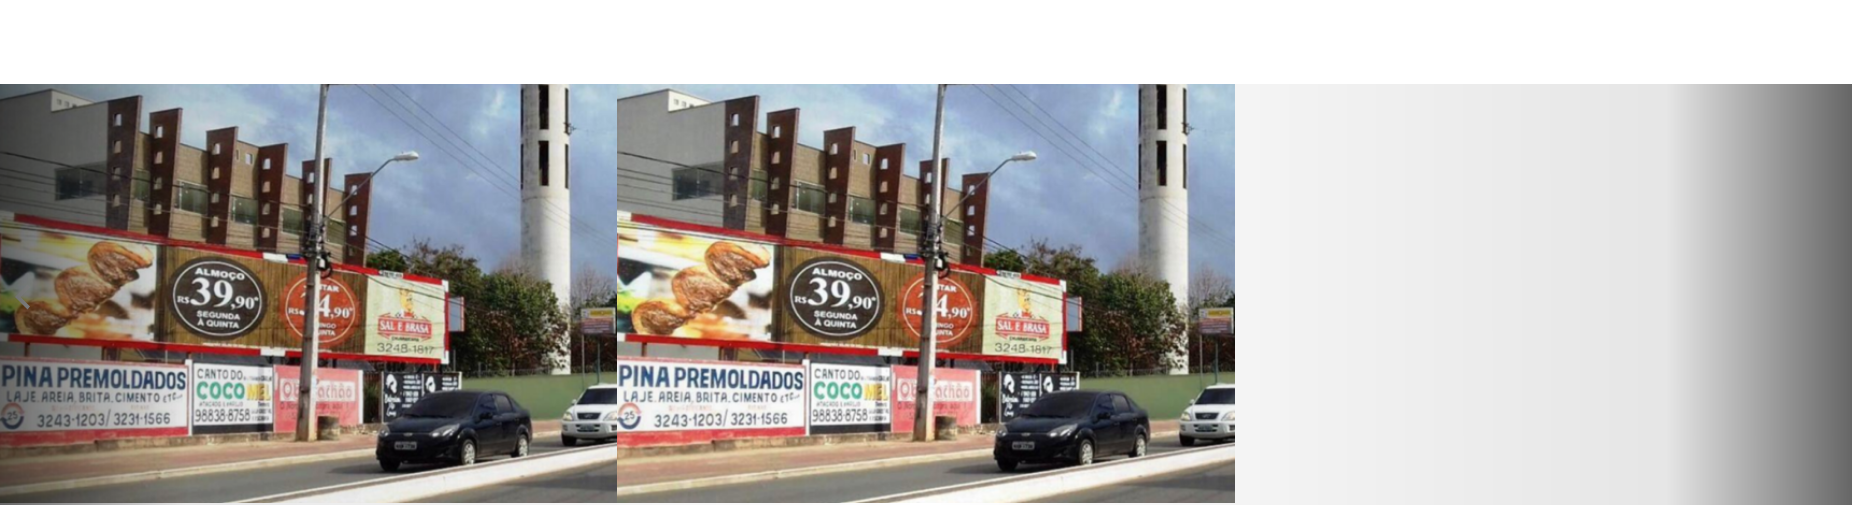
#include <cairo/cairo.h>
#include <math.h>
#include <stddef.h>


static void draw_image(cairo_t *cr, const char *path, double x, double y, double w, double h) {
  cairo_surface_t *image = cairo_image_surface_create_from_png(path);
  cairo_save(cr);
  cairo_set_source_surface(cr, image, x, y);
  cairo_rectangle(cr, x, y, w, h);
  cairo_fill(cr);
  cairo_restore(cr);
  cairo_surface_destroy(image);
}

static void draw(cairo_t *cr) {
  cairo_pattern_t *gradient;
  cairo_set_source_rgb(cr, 1, 1, 1);
  cairo_paint(cr);
  draw_image(cr, "images/1.png", 0, 84, 617, 419);
  draw_image(cr, "images/2.png", 617, 84, 618, 419);
  cairo_set_source_rgb(cr, 1, 1, 1);
  cairo_new_path(cr);
  cairo_move_to(cr, 30, 287.5);
  cairo_line_to(cr, 27.5, 284.5);
  cairo_line_to(cr, 15, 297);
  cairo_line_to(cr, 27.5, 309.5);
  cairo_line_to(cr, 30, 306.5);
  cairo_line_to(cr, 20.5, 297);
  cairo_close_path(cr);
  cairo_fill(cr);
  gradient = cairo_pattern_create_linear(0, 295, 1852, 294);
  cairo_pattern_add_color_stop_rgba(gradient, 0, 0, 0, 0, 0.6);
  cairo_pattern_add_color_stop_rgba(gradient, 0.1, 0, 0, 0, 0.09);
  cairo_pattern_add_color_stop_rgba(gradient, 0.5, 0, 0, 0, 0);
  cairo_pattern_add_color_stop_rgba(gradient, 0.9, 0, 0, 0, 0.1);
  cairo_pattern_add_color_stop_rgba(gradient, 1, 0, 0, 0, 0.6);
  cairo_set_source(cr, gradient);
  cairo_pattern_destroy(gradient);
  cairo_rectangle(cr, 0, 84, 1852, 421);
  cairo_fill(cr);
}

int main(void) {
  cairo_surface_t *surface = cairo_image_surface_create(CAIRO_FORMAT_RGB24, 1852, 518);
  cairo_t *cr = cairo_create(surface);
  cairo_font_options_t *options = cairo_font_options_create();
  cairo_font_options_set_hint_metrics(options, CAIRO_HINT_METRICS_OFF);
  cairo_font_options_set_hint_style(options, CAIRO_HINT_STYLE_NONE);
  cairo_set_font_options(cr, options);
  cairo_set_miter_limit(cr, 4);
  draw(cr);
  cairo_surface_write_to_png(surface, "out.png");
  cairo_font_options_destroy(options);
  cairo_destroy(cr);
  cairo_surface_destroy(surface);
  return 0;
}
